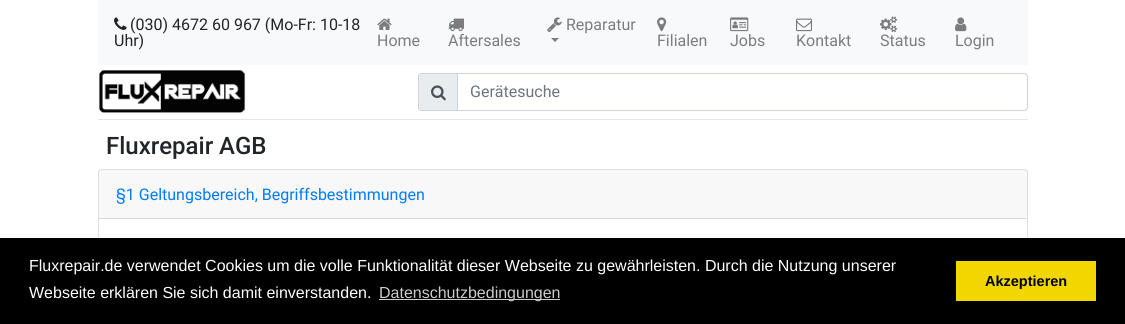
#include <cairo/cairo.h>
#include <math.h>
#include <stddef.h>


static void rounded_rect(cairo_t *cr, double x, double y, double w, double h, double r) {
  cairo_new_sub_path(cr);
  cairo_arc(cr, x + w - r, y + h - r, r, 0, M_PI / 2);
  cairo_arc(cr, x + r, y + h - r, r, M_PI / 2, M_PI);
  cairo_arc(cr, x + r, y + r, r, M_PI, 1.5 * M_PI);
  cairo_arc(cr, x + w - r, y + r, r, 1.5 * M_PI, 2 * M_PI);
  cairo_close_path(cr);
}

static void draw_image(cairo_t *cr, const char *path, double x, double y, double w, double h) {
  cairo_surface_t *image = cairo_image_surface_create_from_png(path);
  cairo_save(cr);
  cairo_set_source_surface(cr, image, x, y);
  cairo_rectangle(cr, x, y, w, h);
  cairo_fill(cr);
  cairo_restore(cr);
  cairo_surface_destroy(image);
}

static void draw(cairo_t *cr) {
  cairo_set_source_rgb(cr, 1, 1, 1);
  cairo_paint(cr);
  cairo_set_source_rgb(cr, 229 / 255.0, 229 / 255.0, 229 / 255.0);
  cairo_rectangle(cr, 98, 119, 930, 1);
  cairo_fill(cr);
  cairo_set_source_rgb(cr, 248 / 255.0, 249 / 255.0, 250 / 255.0);
  cairo_rectangle(cr, 98, 0, 930, 65);
  cairo_fill(cr);
  draw_image(cr, "images/1.png", 114, 17, 13, 13);
  draw_image(cr, "images/2.png", 547, 17, 15, 16);
  cairo_set_source_rgb(cr, 124 / 255.0, 125 / 255.0, 125 / 255.0);
  cairo_new_path(cr);
  cairo_move_to(cr, 551, 38);
  cairo_line_to(cr, 559, 38);
  cairo_line_to(cr, 555, 42);
  cairo_close_path(cr);
  cairo_fill(cr);
  draw_image(cr, "images/3.png", 377, 18, 15, 12);
  draw_image(cr, "images/4.png", 448, 18, 16, 14);
  draw_image(cr, "images/5.png", 657, 17, 10, 15);
  draw_image(cr, "images/6.png", 730, 17, 19, 15);
  draw_image(cr, "images/7.png", 796, 18, 16, 14);
  draw_image(cr, "images/8.png", 880, 16, 18, 16);
  draw_image(cr, "images/9.png", 955, 17, 12, 15);
  draw_image(cr, "images/10.png", 99, 70, 147, 44);
  cairo_set_source_rgb(cr, 233 / 255.0, 236 / 255.0, 239 / 255.0);
  cairo_new_path(cr);
  cairo_move_to(cr, 422, 73.5);
  cairo_line_to(cr, 457.5, 73.5);
  cairo_line_to(cr, 457.5, 110.5);
  cairo_line_to(cr, 422, 110.5);
  cairo_curve_to(cr, 420, 110.5, 418.5, 109, 418.5, 107);
  cairo_line_to(cr, 418.5, 77);
  cairo_curve_to(cr, 418.5, 75, 420, 73.5, 422, 73.5);
  cairo_close_path(cr);
  cairo_fill_preserve(cr);
  cairo_set_source_rgb(cr, 206 / 255.0, 212 / 255.0, 218 / 255.0);
  cairo_set_line_width(cr, 1);
  cairo_stroke(cr);
  draw_image(cr, "images/11.png", 431, 85, 15, 16);
  cairo_new_path(cr);
  cairo_move_to(cr, 457.5, 73.5);
  cairo_line_to(cr, 1024, 73.5);
  cairo_curve_to(cr, 1026, 73.5, 1027.5, 75, 1027.5, 77);
  cairo_line_to(cr, 1027.5, 107);
  cairo_curve_to(cr, 1027.5, 109, 1026, 110.5, 1024, 110.5);
  cairo_line_to(cr, 457.5, 110.5);
  cairo_close_path(cr);
  cairo_stroke(cr);
  rounded_rect(cr, 98.5, 169.5, 929, 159, 3.5);
  cairo_set_source_rgb(cr, 223 / 255.0, 223 / 255.0, 223 / 255.0);
  cairo_stroke(cr);
  cairo_set_source_rgba(cr, 0, 0, 0, 0.03);
  cairo_rectangle(cr, 99, 170, 928, 48);
  cairo_fill(cr);
  cairo_set_source_rgb(cr, 216 / 255.0, 216 / 255.0, 216 / 255.0);
  cairo_rectangle(cr, 99, 218, 928, 1);
  cairo_fill(cr);
  cairo_set_source_rgb(cr, 0, 0, 0);
  cairo_rectangle(cr, 0, 238, 1125, 86);
  cairo_fill(cr);
  cairo_set_source_rgb(cr, 204 / 255.0, 204 / 255.0, 204 / 255.0);
  cairo_rectangle(cr, 379, 299, 181, 1);
  cairo_fill(cr);
  cairo_set_source_rgb(cr, 241 / 255.0, 214 / 255.0, 0);
  cairo_rectangle(cr, 956, 261, 140, 40);
  cairo_fill(cr);
  cairo_select_font_face(cr, "Roboto", CAIRO_FONT_SLANT_NORMAL, CAIRO_FONT_WEIGHT_NORMAL);
  cairo_set_font_size(cr, 16);
  cairo_set_source_rgb(cr, 33 / 255.0, 37 / 255.0, 41 / 255.0);
  cairo_move_to(cr, 130, 30);
  cairo_show_text(cr, "(030) 4672 60 967 (Mo-Fr: 10-18");
  cairo_move_to(cr, 114, 46);
  cairo_show_text(cr, "Uhr)");
  cairo_set_source_rgb(cr, 124 / 255.0, 125 / 255.0, 125 / 255.0);
  cairo_move_to(cr, 566, 30);
  cairo_show_text(cr, "Reparatur");
  cairo_move_to(cr, 377, 46);
  cairo_show_text(cr, "Home");
  cairo_move_to(cr, 448, 46);
  cairo_show_text(cr, "Aftersales");
  cairo_move_to(cr, 657, 46);
  cairo_show_text(cr, "Filialen");
  cairo_move_to(cr, 730, 46);
  cairo_show_text(cr, "Jobs");
  cairo_move_to(cr, 796, 46);
  cairo_show_text(cr, "Kontakt");
  cairo_move_to(cr, 880, 46);
  cairo_show_text(cr, "Status");
  cairo_move_to(cr, 955, 46);
  cairo_show_text(cr, "Login");
  cairo_set_source_rgb(cr, 108 / 255.0, 117 / 255.0, 125 / 255.0);
  cairo_move_to(cr, 470, 97);
  cairo_show_text(cr, "Gerätesuche");
  cairo_select_font_face(cr, "Roboto Medium", CAIRO_FONT_SLANT_NORMAL, CAIRO_FONT_WEIGHT_NORMAL);
  cairo_set_font_size(cr, 24);
  cairo_set_source_rgb(cr, 33 / 255.0, 37 / 255.0, 41 / 255.0);
  cairo_move_to(cr, 106, 154);
  cairo_show_text(cr, "Fluxrepair AGB");
  cairo_select_font_face(cr, "Roboto", CAIRO_FONT_SLANT_NORMAL, CAIRO_FONT_WEIGHT_NORMAL);
  cairo_set_font_size(cr, 16);
  cairo_set_source_rgb(cr, 0, 123 / 255.0, 1);
  cairo_move_to(cr, 116, 200);
  cairo_show_text(cr, "§1 Geltungsbereich, Begriffsbestimmungen");
  cairo_select_font_face(cr, "Liberation Sans", CAIRO_FONT_SLANT_NORMAL, CAIRO_FONT_WEIGHT_NORMAL);
  cairo_set_source_rgb(cr, 1, 1, 1);
  cairo_move_to(cr, 29, 271);
  cairo_show_text(cr, "Fluxrepair.de verwendet Cookies um die volle Funktionalität dieser Webseite zu gewährleisten. Durch die Nutzung unserer");
  cairo_move_to(cr, 29, 298);
  cairo_show_text(cr, "Webseite erklären Sie sich damit einverstanden.");
  cairo_set_source_rgb(cr, 204 / 255.0, 204 / 255.0, 204 / 255.0);
  cairo_move_to(cr, 379, 298);
  cairo_show_text(cr, "Datenschutzbedingungen");
  cairo_select_font_face(cr, "Liberation Sans", CAIRO_FONT_SLANT_NORMAL, CAIRO_FONT_WEIGHT_BOLD);
  cairo_set_font_size(cr, 14.5);
  cairo_set_source_rgb(cr, 0, 0, 0);
  cairo_move_to(cr, 985, 286);
  cairo_show_text(cr, "Akzeptieren");
}

int main(void) {
  cairo_surface_t *surface = cairo_image_surface_create(CAIRO_FORMAT_RGB24, 1125, 324);
  cairo_t *cr = cairo_create(surface);
  cairo_font_options_t *options = cairo_font_options_create();
  cairo_font_options_set_hint_metrics(options, CAIRO_HINT_METRICS_OFF);
  cairo_font_options_set_hint_style(options, CAIRO_HINT_STYLE_NONE);
  cairo_set_font_options(cr, options);
  cairo_set_miter_limit(cr, 4);
  draw(cr);
  cairo_surface_write_to_png(surface, "out.png");
  cairo_font_options_destroy(options);
  cairo_destroy(cr);
  cairo_surface_destroy(surface);
  return 0;
}
